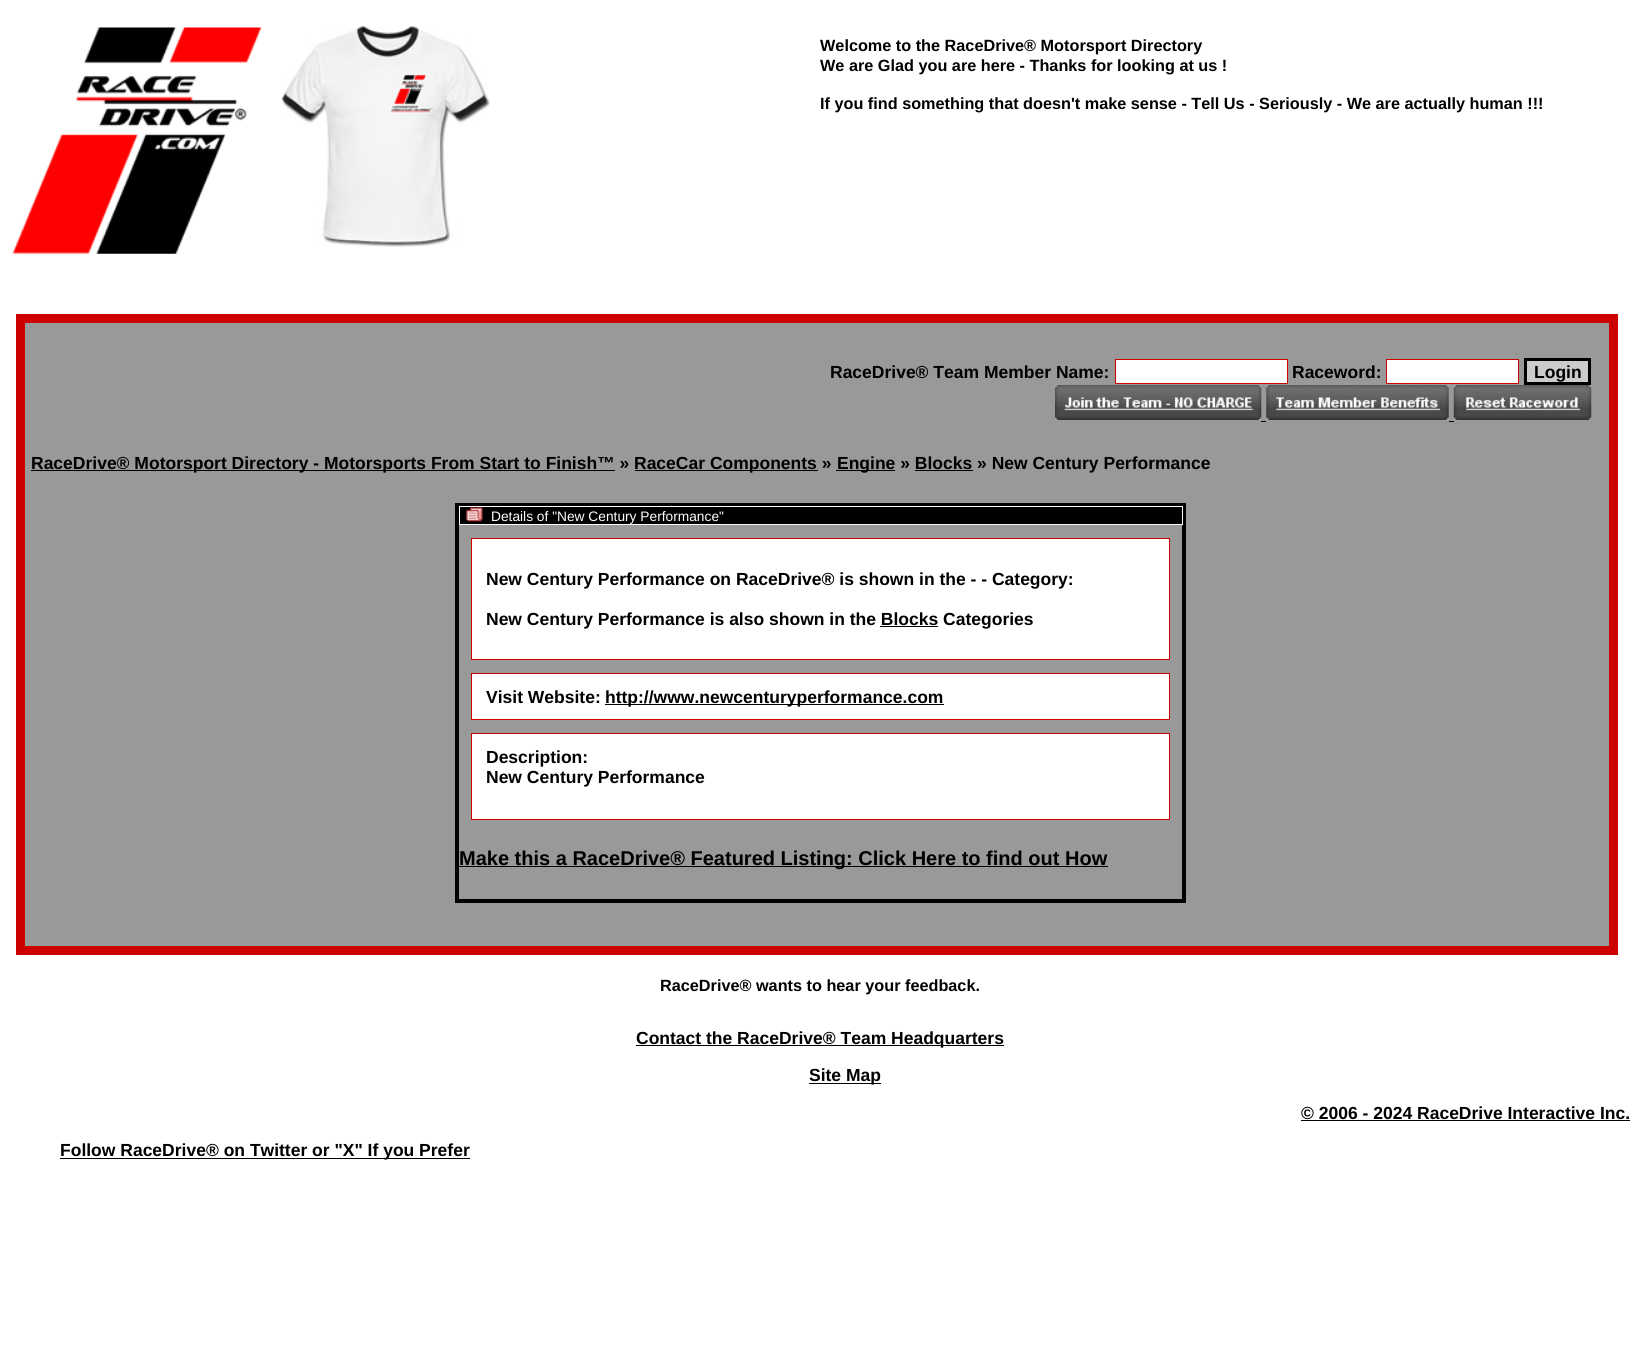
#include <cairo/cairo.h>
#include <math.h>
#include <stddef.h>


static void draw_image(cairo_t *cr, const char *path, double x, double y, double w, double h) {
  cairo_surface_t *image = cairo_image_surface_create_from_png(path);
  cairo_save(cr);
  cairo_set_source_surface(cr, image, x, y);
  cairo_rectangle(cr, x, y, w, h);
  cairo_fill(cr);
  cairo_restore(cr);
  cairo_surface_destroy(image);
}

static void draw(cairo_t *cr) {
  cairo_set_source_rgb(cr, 1, 1, 1);
  cairo_paint(cr);
  draw_image(cr, "images/1.png", 12, 27, 250, 227);
  draw_image(cr, "images/2.png", 281, 26, 209, 221);
  cairo_set_source_rgb(cr, 153 / 255.0, 153 / 255.0, 153 / 255.0);
  cairo_rectangle(cr, 20.5, 318.5, 1593, 632);
  cairo_fill_preserve(cr);
  cairo_set_source_rgb(cr, 204 / 255.0, 0, 0);
  cairo_set_line_width(cr, 9);
  cairo_stroke(cr);
  cairo_set_source_rgb(cr, 1, 1, 1);
  cairo_rectangle(cr, 1115.5, 359.5, 172, 24);
  cairo_fill_preserve(cr);
  cairo_set_source_rgb(cr, 204 / 255.0, 0, 0);
  cairo_set_line_width(cr, 1);
  cairo_stroke(cr);
  cairo_set_source_rgb(cr, 1, 1, 1);
  cairo_rectangle(cr, 1386.5, 359.5, 132, 24);
  cairo_fill_preserve(cr);
  cairo_set_source_rgb(cr, 204 / 255.0, 0, 0);
  cairo_stroke(cr);
  cairo_set_source_rgb(cr, 204 / 255.0, 204 / 255.0, 204 / 255.0);
  cairo_rectangle(cr, 1525.5, 359.5, 64, 24);
  cairo_fill_preserve(cr);
  cairo_set_source_rgb(cr, 0, 0, 0);
  cairo_set_line_width(cr, 3);
  cairo_stroke(cr);
  draw_image(cr, "images/3.png", 1055, 385, 207, 35);
  draw_image(cr, "images/4.png", 1266, 385, 183, 35);
  draw_image(cr, "images/5.png", 1453, 385, 139, 35);
  cairo_rectangle(cr, 1261, 421, 5, 1);
  cairo_fill(cr);
  cairo_rectangle(cr, 1449, 421, 5, 1);
  cairo_fill(cr);
  cairo_rectangle(cr, 31, 470, 584, 1);
  cairo_fill(cr);
  cairo_rectangle(cr, 635, 470, 183, 1);
  cairo_fill(cr);
  cairo_rectangle(cr, 836, 470, 59, 1);
  cairo_fill(cr);
  cairo_rectangle(cr, 915, 470, 58, 1);
  cairo_fill(cr);
  cairo_rectangle(cr, 457, 505, 727, 396);
  cairo_set_line_width(cr, 4);
  cairo_stroke(cr);
  cairo_rectangle(cr, 459.5, 506.5, 723, 18);
  cairo_fill_preserve(cr);
  cairo_set_source_rgb(cr, 248 / 255.0, 251 / 255.0, 1);
  cairo_set_line_width(cr, 1);
  cairo_stroke(cr);
  draw_image(cr, "images/6.png", 466, 507, 17, 15);
  cairo_set_source_rgb(cr, 1, 1, 1);
  cairo_rectangle(cr, 471.5, 538.5, 698, 121);
  cairo_fill_preserve(cr);
  cairo_set_source_rgb(cr, 204 / 255.0, 0, 0);
  cairo_stroke(cr);
  cairo_set_source_rgb(cr, 0, 0, 0);
  cairo_rectangle(cr, 880, 626, 58, 1);
  cairo_fill(cr);
  cairo_set_source_rgb(cr, 1, 1, 1);
  cairo_rectangle(cr, 471.5, 673.5, 698, 46);
  cairo_fill_preserve(cr);
  cairo_set_source_rgb(cr, 204 / 255.0, 0, 0);
  cairo_stroke(cr);
  cairo_set_source_rgb(cr, 0, 0, 0);
  cairo_rectangle(cr, 605, 704, 339, 1);
  cairo_fill(cr);
  cairo_set_source_rgb(cr, 1, 1, 1);
  cairo_rectangle(cr, 471.5, 733.5, 698, 86);
  cairo_fill_preserve(cr);
  cairo_set_source_rgb(cr, 204 / 255.0, 0, 0);
  cairo_stroke(cr);
  cairo_set_source_rgb(cr, 0, 0, 0);
  cairo_rectangle(cr, 459, 866, 649, 1);
  cairo_fill(cr);
  cairo_rectangle(cr, 636, 1045, 368, 1);
  cairo_fill(cr);
  cairo_rectangle(cr, 809, 1083, 72, 1);
  cairo_fill(cr);
  cairo_rectangle(cr, 1301, 1120, 329, 1);
  cairo_fill(cr);
  cairo_rectangle(cr, 60, 1158, 410, 1);
  cairo_fill(cr);
  cairo_select_font_face(cr, "Liberation Sans", CAIRO_FONT_SLANT_NORMAL, CAIRO_FONT_WEIGHT_BOLD);
  cairo_set_font_size(cr, 16.25);
  cairo_move_to(cr, 820, 51);
  cairo_show_text(cr, "Welcome to the RaceDrive® Motorsport Directory");
  cairo_move_to(cr, 820, 71);
  cairo_show_text(cr, "We are Glad you are here - Thanks for looking at us !");
  cairo_move_to(cr, 820, 109);
  cairo_show_text(cr, "If you find something that doesn't make sense - Tell Us - Seriously - We are actually human !!!");
  cairo_set_font_size(cr, 17.5);
  cairo_move_to(cr, 830, 378);
  cairo_show_text(cr, "RaceDrive® Team Member Name:");
  cairo_move_to(cr, 1292, 378);
  cairo_show_text(cr, "Raceword:");
  cairo_move_to(cr, 1534, 378);
  cairo_show_text(cr, "Login");
  cairo_move_to(cr, 31, 469);
  cairo_show_text(cr, "RaceDrive® Motorsport Directory - Motorsports From Start to Finish™ »");
  cairo_move_to(cr, 634, 469);
  cairo_show_text(cr, "RaceCar Components »");
  cairo_move_to(cr, 837, 469);
  cairo_show_text(cr, "Engine » Blocks » New Century Performance");
  cairo_select_font_face(cr, "Liberation Sans", CAIRO_FONT_SLANT_NORMAL, CAIRO_FONT_WEIGHT_NORMAL);
  cairo_set_font_size(cr, 13.75);
  cairo_set_source_rgb(cr, 1, 1, 1);
  cairo_move_to(cr, 491, 521);
  cairo_show_text(cr, "Details of \"New Century Performance\"");
  cairo_select_font_face(cr, "Liberation Sans", CAIRO_FONT_SLANT_NORMAL, CAIRO_FONT_WEIGHT_BOLD);
  cairo_set_font_size(cr, 17.5);
  cairo_set_source_rgb(cr, 0, 0, 0);
  cairo_move_to(cr, 486, 585);
  cairo_show_text(cr, "New Century Performance on RaceDrive® is shown in the - - Category:");
  cairo_move_to(cr, 486, 625);
  cairo_show_text(cr, "New Century Performance is also shown in the Blocks Categories");
  cairo_move_to(cr, 486, 703);
  cairo_show_text(cr, "Visit Website:");
  cairo_move_to(cr, 605, 703);
  cairo_show_text(cr, "http://www.newcenturyperformance.com");
  cairo_move_to(cr, 486, 763);
  cairo_show_text(cr, "Description:");
  cairo_move_to(cr, 486, 783);
  cairo_show_text(cr, "New Century Performance");
  cairo_set_font_size(cr, 20);
  cairo_move_to(cr, 459, 865);
  cairo_show_text(cr, "Make this a RaceDrive® Featured Listing: Click Here to find out How");
  cairo_set_font_size(cr, 16.25);
  cairo_move_to(cr, 660, 991);
  cairo_show_text(cr, "RaceDrive® wants to hear your feedback.");
  cairo_set_font_size(cr, 17.5);
  cairo_move_to(cr, 636, 1044);
  cairo_show_text(cr, "Contact the RaceDrive® Team Headquarters");
  cairo_move_to(cr, 809, 1081);
  cairo_show_text(cr, "Site Map");
  cairo_move_to(cr, 1301, 1119);
  cairo_show_text(cr, "© 2006 - 2024 RaceDrive Interactive Inc.");
  cairo_move_to(cr, 60, 1156);
  cairo_show_text(cr, "Follow RaceDrive® on Twitter or \"X\" If you Prefer");
}

int main(void) {
  cairo_surface_t *surface = cairo_image_surface_create(CAIRO_FORMAT_RGB24, 1639, 1365);
  cairo_t *cr = cairo_create(surface);
  cairo_font_options_t *options = cairo_font_options_create();
  cairo_font_options_set_hint_metrics(options, CAIRO_HINT_METRICS_OFF);
  cairo_font_options_set_hint_style(options, CAIRO_HINT_STYLE_NONE);
  cairo_set_font_options(cr, options);
  cairo_set_miter_limit(cr, 4);
  draw(cr);
  cairo_surface_write_to_png(surface, "out.png");
  cairo_font_options_destroy(options);
  cairo_destroy(cr);
  cairo_surface_destroy(surface);
  return 0;
}
